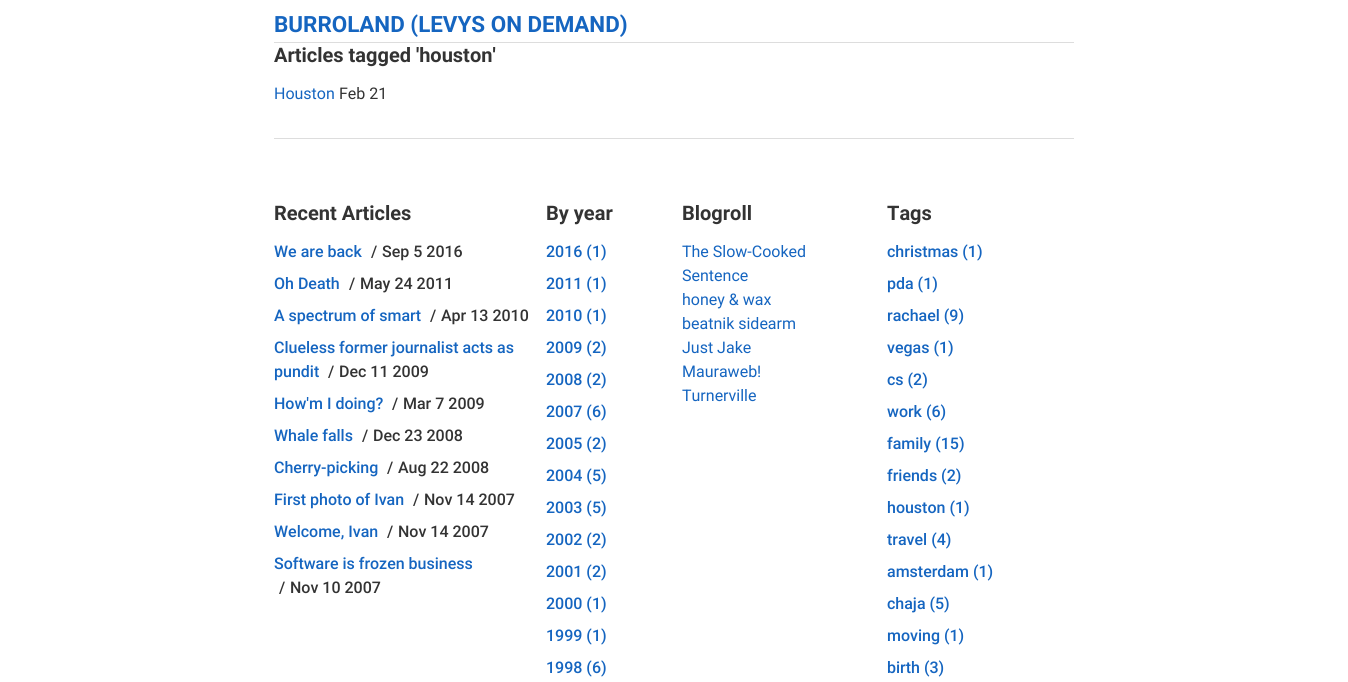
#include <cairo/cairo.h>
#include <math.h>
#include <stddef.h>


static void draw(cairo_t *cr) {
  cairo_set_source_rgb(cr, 1, 1, 1);
  cairo_paint(cr);
  cairo_set_source_rgb(cr, 221 / 255.0, 221 / 255.0, 221 / 255.0);
  cairo_rectangle(cr, 274, 42, 800, 1);
  cairo_fill(cr);
  cairo_rectangle(cr, 274, 138, 800, 1);
  cairo_fill(cr);
  cairo_select_font_face(cr, "Roboto", CAIRO_FONT_SLANT_NORMAL, CAIRO_FONT_WEIGHT_BOLD);
  cairo_set_font_size(cr, 22.4);
  cairo_set_source_rgb(cr, 21 / 255.0, 101 / 255.0, 192 / 255.0);
  cairo_move_to(cr, 274, 32);
  cairo_show_text(cr, "BURROLAND (LEVYS ON DEMAND)");
  cairo_set_font_size(cr, 20);
  cairo_set_source_rgb(cr, 51 / 255.0, 51 / 255.0, 51 / 255.0);
  cairo_move_to(cr, 274, 62);
  cairo_show_text(cr, "Articles tagged 'houston'");
  cairo_select_font_face(cr, "Roboto", CAIRO_FONT_SLANT_NORMAL, CAIRO_FONT_WEIGHT_NORMAL);
  cairo_set_font_size(cr, 16);
  cairo_set_source_rgb(cr, 21 / 255.0, 101 / 255.0, 192 / 255.0);
  cairo_move_to(cr, 274, 99);
  cairo_show_text(cr, "Houston");
  cairo_set_source_rgb(cr, 51 / 255.0, 51 / 255.0, 51 / 255.0);
  cairo_move_to(cr, 339, 99);
  cairo_show_text(cr, "Feb 21");
  cairo_select_font_face(cr, "Roboto", CAIRO_FONT_SLANT_NORMAL, CAIRO_FONT_WEIGHT_BOLD);
  cairo_set_font_size(cr, 20);
  cairo_move_to(cr, 274, 220);
  cairo_show_text(cr, "Recent Articles");
  cairo_select_font_face(cr, "Roboto Medium", CAIRO_FONT_SLANT_NORMAL, CAIRO_FONT_WEIGHT_NORMAL);
  cairo_set_font_size(cr, 16);
  cairo_set_source_rgb(cr, 21 / 255.0, 101 / 255.0, 192 / 255.0);
  cairo_move_to(cr, 274, 257);
  cairo_show_text(cr, "We are back");
  cairo_set_source_rgb(cr, 51 / 255.0, 51 / 255.0, 51 / 255.0);
  cairo_move_to(cr, 371, 257);
  cairo_show_text(cr, "/");
  cairo_move_to(cr, 382, 257);
  cairo_show_text(cr, "Sep 5 2016");
  cairo_set_source_rgb(cr, 21 / 255.0, 101 / 255.0, 192 / 255.0);
  cairo_move_to(cr, 274, 289);
  cairo_show_text(cr, "Oh Death");
  cairo_set_source_rgb(cr, 51 / 255.0, 51 / 255.0, 51 / 255.0);
  cairo_move_to(cr, 349, 289);
  cairo_show_text(cr, "/");
  cairo_move_to(cr, 360, 289);
  cairo_show_text(cr, "May 24 2011");
  cairo_set_source_rgb(cr, 21 / 255.0, 101 / 255.0, 192 / 255.0);
  cairo_move_to(cr, 274, 321);
  cairo_show_text(cr, "A spectrum of smart");
  cairo_set_source_rgb(cr, 51 / 255.0, 51 / 255.0, 51 / 255.0);
  cairo_move_to(cr, 430, 321);
  cairo_show_text(cr, "/");
  cairo_move_to(cr, 441, 321);
  cairo_show_text(cr, "Apr 13 2010");
  cairo_set_source_rgb(cr, 21 / 255.0, 101 / 255.0, 192 / 255.0);
  cairo_move_to(cr, 274, 353);
  cairo_show_text(cr, "Clueless former journalist acts as");
  cairo_move_to(cr, 274, 377);
  cairo_show_text(cr, "pundit");
  cairo_set_source_rgb(cr, 51 / 255.0, 51 / 255.0, 51 / 255.0);
  cairo_move_to(cr, 328, 377);
  cairo_show_text(cr, "/");
  cairo_move_to(cr, 339, 377);
  cairo_show_text(cr, "Dec 11 2009");
  cairo_set_source_rgb(cr, 21 / 255.0, 101 / 255.0, 192 / 255.0);
  cairo_move_to(cr, 274, 409);
  cairo_show_text(cr, "How'm I doing?");
  cairo_set_source_rgb(cr, 51 / 255.0, 51 / 255.0, 51 / 255.0);
  cairo_move_to(cr, 392, 409);
  cairo_show_text(cr, "/");
  cairo_move_to(cr, 403, 409);
  cairo_show_text(cr, "Mar 7 2009");
  cairo_set_source_rgb(cr, 21 / 255.0, 101 / 255.0, 192 / 255.0);
  cairo_move_to(cr, 274, 441);
  cairo_show_text(cr, "Whale falls");
  cairo_set_source_rgb(cr, 51 / 255.0, 51 / 255.0, 51 / 255.0);
  cairo_move_to(cr, 362, 441);
  cairo_show_text(cr, "/");
  cairo_move_to(cr, 373, 441);
  cairo_show_text(cr, "Dec 23 2008");
  cairo_set_source_rgb(cr, 21 / 255.0, 101 / 255.0, 192 / 255.0);
  cairo_move_to(cr, 274, 473);
  cairo_show_text(cr, "Cherry-picking");
  cairo_set_source_rgb(cr, 51 / 255.0, 51 / 255.0, 51 / 255.0);
  cairo_move_to(cr, 387, 473);
  cairo_show_text(cr, "/");
  cairo_move_to(cr, 398, 473);
  cairo_show_text(cr, "Aug 22 2008");
  cairo_set_source_rgb(cr, 21 / 255.0, 101 / 255.0, 192 / 255.0);
  cairo_move_to(cr, 274, 505);
  cairo_show_text(cr, "First photo of Ivan");
  cairo_set_source_rgb(cr, 51 / 255.0, 51 / 255.0, 51 / 255.0);
  cairo_move_to(cr, 413, 505);
  cairo_show_text(cr, "/");
  cairo_move_to(cr, 424, 505);
  cairo_show_text(cr, "Nov 14 2007");
  cairo_set_source_rgb(cr, 21 / 255.0, 101 / 255.0, 192 / 255.0);
  cairo_move_to(cr, 274, 537);
  cairo_show_text(cr, "Welcome, Ivan");
  cairo_set_source_rgb(cr, 51 / 255.0, 51 / 255.0, 51 / 255.0);
  cairo_move_to(cr, 387, 537);
  cairo_show_text(cr, "/");
  cairo_move_to(cr, 398, 537);
  cairo_show_text(cr, "Nov 14 2007");
  cairo_set_source_rgb(cr, 21 / 255.0, 101 / 255.0, 192 / 255.0);
  cairo_move_to(cr, 274, 569);
  cairo_show_text(cr, "Software is frozen business");
  cairo_set_source_rgb(cr, 51 / 255.0, 51 / 255.0, 51 / 255.0);
  cairo_move_to(cr, 279, 593);
  cairo_show_text(cr, "/");
  cairo_move_to(cr, 290, 593);
  cairo_show_text(cr, "Nov 10 2007");
  cairo_select_font_face(cr, "Roboto", CAIRO_FONT_SLANT_NORMAL, CAIRO_FONT_WEIGHT_BOLD);
  cairo_set_font_size(cr, 20);
  cairo_move_to(cr, 546, 220);
  cairo_show_text(cr, "By year");
  cairo_select_font_face(cr, "Roboto Medium", CAIRO_FONT_SLANT_NORMAL, CAIRO_FONT_WEIGHT_NORMAL);
  cairo_set_font_size(cr, 16);
  cairo_set_source_rgb(cr, 21 / 255.0, 101 / 255.0, 192 / 255.0);
  cairo_move_to(cr, 546, 257);
  cairo_show_text(cr, "2016 (1)");
  cairo_move_to(cr, 546, 289);
  cairo_show_text(cr, "2011 (1)");
  cairo_move_to(cr, 546, 321);
  cairo_show_text(cr, "2010 (1)");
  cairo_move_to(cr, 546, 353);
  cairo_show_text(cr, "2009 (2)");
  cairo_move_to(cr, 546, 385);
  cairo_show_text(cr, "2008 (2)");
  cairo_move_to(cr, 546, 417);
  cairo_show_text(cr, "2007 (6)");
  cairo_move_to(cr, 546, 449);
  cairo_show_text(cr, "2005 (2)");
  cairo_move_to(cr, 546, 481);
  cairo_show_text(cr, "2004 (5)");
  cairo_move_to(cr, 546, 513);
  cairo_show_text(cr, "2003 (5)");
  cairo_move_to(cr, 546, 545);
  cairo_show_text(cr, "2002 (2)");
  cairo_move_to(cr, 546, 577);
  cairo_show_text(cr, "2001 (2)");
  cairo_move_to(cr, 546, 609);
  cairo_show_text(cr, "2000 (1)");
  cairo_move_to(cr, 546, 641);
  cairo_show_text(cr, "1999 (1)");
  cairo_move_to(cr, 546, 673);
  cairo_show_text(cr, "1998 (6)");
  cairo_select_font_face(cr, "Roboto", CAIRO_FONT_SLANT_NORMAL, CAIRO_FONT_WEIGHT_BOLD);
  cairo_set_font_size(cr, 20);
  cairo_set_source_rgb(cr, 51 / 255.0, 51 / 255.0, 51 / 255.0);
  cairo_move_to(cr, 682, 220);
  cairo_show_text(cr, "Blogroll");
  cairo_select_font_face(cr, "Roboto", CAIRO_FONT_SLANT_NORMAL, CAIRO_FONT_WEIGHT_NORMAL);
  cairo_set_font_size(cr, 16);
  cairo_set_source_rgb(cr, 21 / 255.0, 101 / 255.0, 192 / 255.0);
  cairo_move_to(cr, 682, 257);
  cairo_show_text(cr, "The Slow-Cooked");
  cairo_move_to(cr, 682, 281);
  cairo_show_text(cr, "Sentence");
  cairo_move_to(cr, 682, 305);
  cairo_show_text(cr, "honey & wax");
  cairo_move_to(cr, 682, 329);
  cairo_show_text(cr, "beatnik sidearm");
  cairo_move_to(cr, 682, 353);
  cairo_show_text(cr, "Just Jake");
  cairo_move_to(cr, 682, 377);
  cairo_show_text(cr, "Mauraweb!");
  cairo_move_to(cr, 682, 401);
  cairo_show_text(cr, "Turnerville");
  cairo_select_font_face(cr, "Roboto", CAIRO_FONT_SLANT_NORMAL, CAIRO_FONT_WEIGHT_BOLD);
  cairo_set_font_size(cr, 20);
  cairo_set_source_rgb(cr, 51 / 255.0, 51 / 255.0, 51 / 255.0);
  cairo_move_to(cr, 887, 220);
  cairo_show_text(cr, "Tags");
  cairo_select_font_face(cr, "Roboto Medium", CAIRO_FONT_SLANT_NORMAL, CAIRO_FONT_WEIGHT_NORMAL);
  cairo_set_font_size(cr, 16);
  cairo_set_source_rgb(cr, 21 / 255.0, 101 / 255.0, 192 / 255.0);
  cairo_move_to(cr, 887, 257);
  cairo_show_text(cr, "christmas (1)");
  cairo_move_to(cr, 887, 289);
  cairo_show_text(cr, "pda (1)");
  cairo_move_to(cr, 887, 321);
  cairo_show_text(cr, "rachael (9)");
  cairo_move_to(cr, 887, 353);
  cairo_show_text(cr, "vegas (1)");
  cairo_move_to(cr, 887, 385);
  cairo_show_text(cr, "cs (2)");
  cairo_move_to(cr, 887, 417);
  cairo_show_text(cr, "work (6)");
  cairo_move_to(cr, 887, 449);
  cairo_show_text(cr, "family (15)");
  cairo_move_to(cr, 887, 481);
  cairo_show_text(cr, "friends (2)");
  cairo_move_to(cr, 887, 513);
  cairo_show_text(cr, "houston (1)");
  cairo_move_to(cr, 887, 545);
  cairo_show_text(cr, "travel (4)");
  cairo_move_to(cr, 887, 577);
  cairo_show_text(cr, "amsterdam (1)");
  cairo_move_to(cr, 887, 609);
  cairo_show_text(cr, "chaja (5)");
  cairo_move_to(cr, 887, 641);
  cairo_show_text(cr, "moving (1)");
  cairo_move_to(cr, 887, 673);
  cairo_show_text(cr, "birth (3)");
}

int main(void) {
  cairo_surface_t *surface = cairo_image_surface_create(CAIRO_FORMAT_RGB24, 1348, 682);
  cairo_t *cr = cairo_create(surface);
  cairo_font_options_t *options = cairo_font_options_create();
  cairo_font_options_set_hint_metrics(options, CAIRO_HINT_METRICS_OFF);
  cairo_font_options_set_hint_style(options, CAIRO_HINT_STYLE_NONE);
  cairo_set_font_options(cr, options);
  cairo_set_miter_limit(cr, 4);
  draw(cr);
  cairo_surface_write_to_png(surface, "out.png");
  cairo_font_options_destroy(options);
  cairo_destroy(cr);
  cairo_surface_destroy(surface);
  return 0;
}
